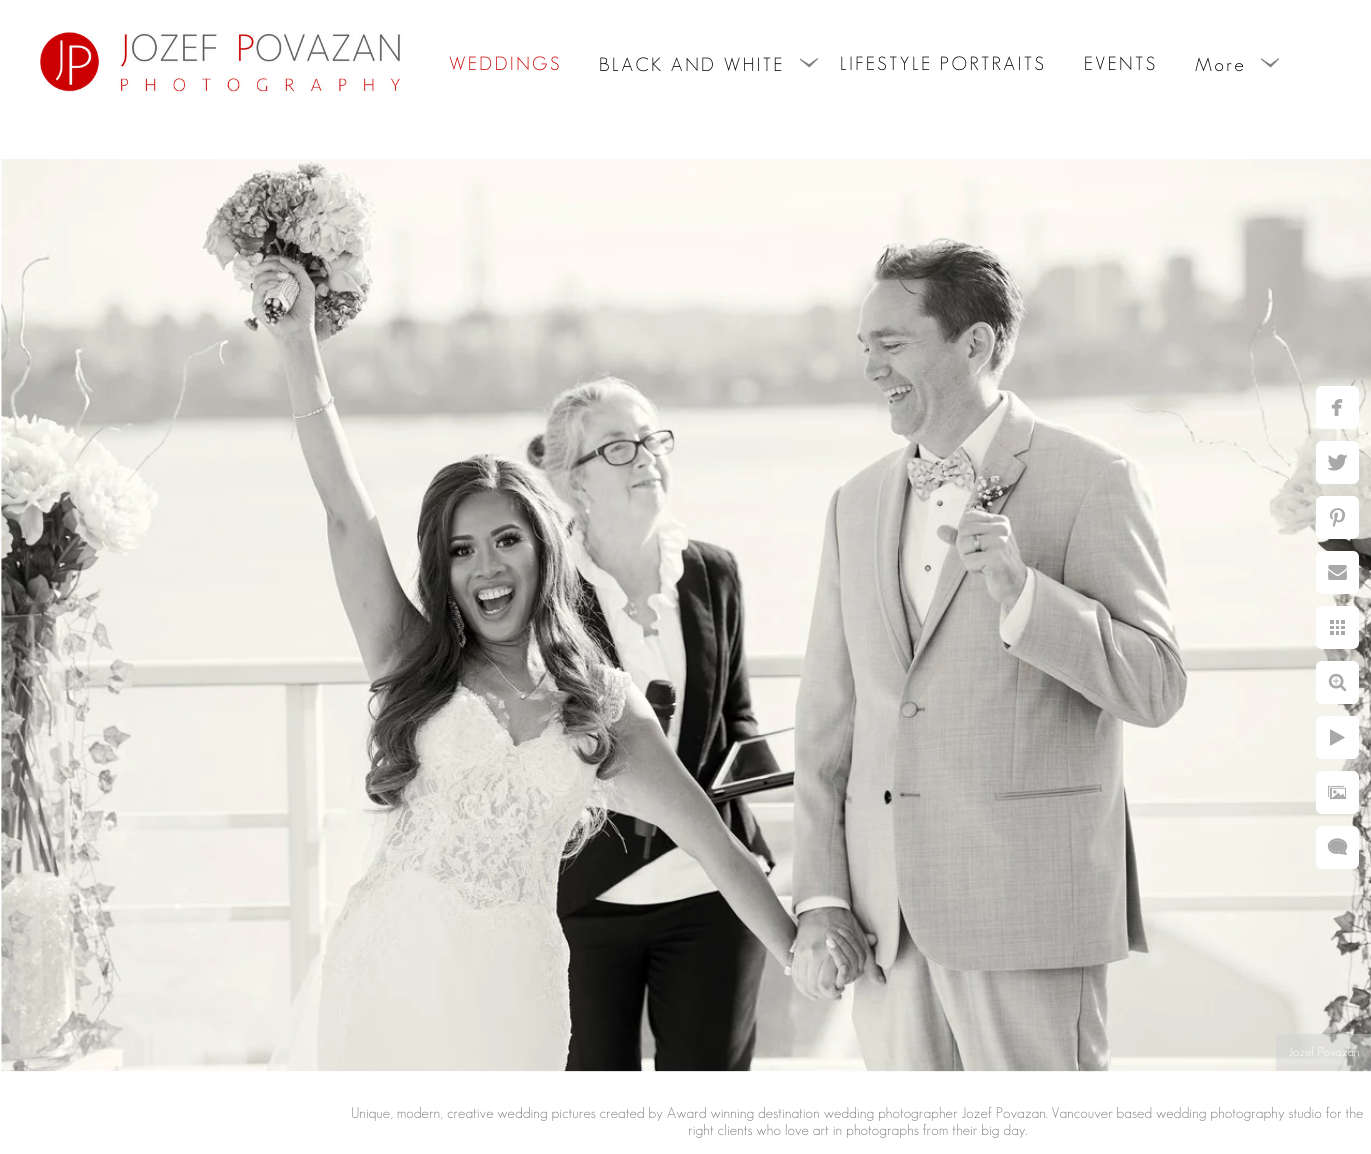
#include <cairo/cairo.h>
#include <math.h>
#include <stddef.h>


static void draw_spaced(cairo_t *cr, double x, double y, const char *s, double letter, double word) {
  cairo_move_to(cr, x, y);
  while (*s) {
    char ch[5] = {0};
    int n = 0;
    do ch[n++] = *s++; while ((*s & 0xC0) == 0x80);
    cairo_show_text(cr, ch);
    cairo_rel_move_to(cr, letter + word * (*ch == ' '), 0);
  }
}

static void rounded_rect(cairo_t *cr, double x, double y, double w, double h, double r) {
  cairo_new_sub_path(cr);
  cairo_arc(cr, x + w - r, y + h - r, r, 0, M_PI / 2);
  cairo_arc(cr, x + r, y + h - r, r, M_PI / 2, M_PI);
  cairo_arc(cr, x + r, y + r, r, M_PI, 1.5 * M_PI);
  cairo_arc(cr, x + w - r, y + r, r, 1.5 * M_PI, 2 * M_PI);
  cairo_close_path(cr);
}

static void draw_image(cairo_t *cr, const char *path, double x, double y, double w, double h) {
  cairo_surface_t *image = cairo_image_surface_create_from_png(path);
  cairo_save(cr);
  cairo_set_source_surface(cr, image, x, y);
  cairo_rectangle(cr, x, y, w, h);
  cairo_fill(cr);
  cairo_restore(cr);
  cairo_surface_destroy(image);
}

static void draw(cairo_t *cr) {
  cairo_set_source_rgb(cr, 1, 1, 1);
  cairo_paint(cr);
  draw_image(cr, "images/1.png", 39, 31, 365, 61);
  draw_image(cr, "images/2.png", 799, 58, 19, 10);
  draw_image(cr, "images/3.png", 1260, 58, 19, 10);
  draw_image(cr, "images/13.png", 1, 159, 1370, 913);
  cairo_set_source_rgb(cr, 1, 1, 1);
  rounded_rect(cr, 1316, 386, 43, 43, 6);
  cairo_fill(cr);
  draw_image(cr, "images/4.png", 1331, 399, 12, 17);
  rounded_rect(cr, 1316, 441, 43, 43, 6);
  cairo_fill(cr);
  draw_image(cr, "images/5.png", 1327, 454, 21, 17);
  rounded_rect(cr, 1316, 496, 43, 43, 6);
  cairo_fill(cr);
  draw_image(cr, "images/6.png", 1330, 508, 15, 19);
  rounded_rect(cr, 1316, 551, 43, 43, 6);
  cairo_fill(cr);
  draw_image(cr, "images/7.png", 1328, 565, 19, 15);
  rounded_rect(cr, 1316, 606, 43, 43, 6);
  cairo_fill(cr);
  draw_image(cr, "images/8.png", 1330, 620, 15, 15);
  rounded_rect(cr, 1316, 661, 43, 43, 6);
  cairo_fill(cr);
  draw_image(cr, "images/9.png", 1328, 673, 19, 19);
  rounded_rect(cr, 1316, 716, 43, 43, 6);
  cairo_fill(cr);
  draw_image(cr, "images/10.png", 1330, 729, 15, 17);
  rounded_rect(cr, 1316, 771, 43, 43, 6);
  cairo_fill(cr);
  draw_image(cr, "images/11.png", 1328, 785, 18, 15);
  rounded_rect(cr, 1316, 826, 43, 43, 6);
  cairo_fill(cr);
  draw_image(cr, "images/12.png", 1327, 838, 21, 18);
  cairo_set_source_rgba(cr, 211 / 255.0, 211 / 255.0, 211 / 255.0, 0.5);
  cairo_rectangle(cr, 1276, 1034, 95, 37);
  cairo_fill(cr);
  cairo_select_font_face(cr, "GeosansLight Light", CAIRO_FONT_SLANT_NORMAL, CAIRO_FONT_WEIGHT_NORMAL);
  cairo_set_font_size(cr, 18.75);
  cairo_set_source_rgb(cr, 204 / 255.0, 0, 0);
  draw_spaced(cr, 449, 70, "WEDDINGS", 2.5, 0);
  cairo_set_source_rgb(cr, 0, 0, 0);
  draw_spaced(cr, 599, 71, "BLACK AND WHITE", 2.5, 0);
  draw_spaced(cr, 840, 70, "LIFESTYLE PORTRAITS", 2.5, 0);
  draw_spaced(cr, 1084, 70, "EVENTS", 2.5, 0);
  draw_spaced(cr, 1195, 71, "More", 2.5, 0);
  cairo_set_font_size(cr, 12.5);
  cairo_set_source_rgb(cr, 1, 1, 1);
  cairo_move_to(cr, 1289, 1056);
  cairo_show_text(cr, "Jozef Povazan");
  cairo_set_font_size(cr, 15);
  cairo_set_source_rgb(cr, 128 / 255.0, 128 / 255.0, 128 / 255.0);
  cairo_move_to(cr, 351, 1118);
  cairo_show_text(cr, "Unique, modern, creative wedding pictures created by Award winning destination wedding photographer Jozef Povazan. Vancouver based wedding photography studio for the");
  cairo_move_to(cr, 688, 1135);
  cairo_show_text(cr, "right clients who love art in photographs from their big day.");
}

int main(void) {
  cairo_surface_t *surface = cairo_image_surface_create(CAIRO_FORMAT_RGB24, 1371, 1154);
  cairo_t *cr = cairo_create(surface);
  cairo_font_options_t *options = cairo_font_options_create();
  cairo_font_options_set_hint_metrics(options, CAIRO_HINT_METRICS_OFF);
  cairo_font_options_set_hint_style(options, CAIRO_HINT_STYLE_NONE);
  cairo_set_font_options(cr, options);
  cairo_set_miter_limit(cr, 4);
  draw(cr);
  cairo_surface_write_to_png(surface, "out.png");
  cairo_font_options_destroy(options);
  cairo_destroy(cr);
  cairo_surface_destroy(surface);
  return 0;
}
